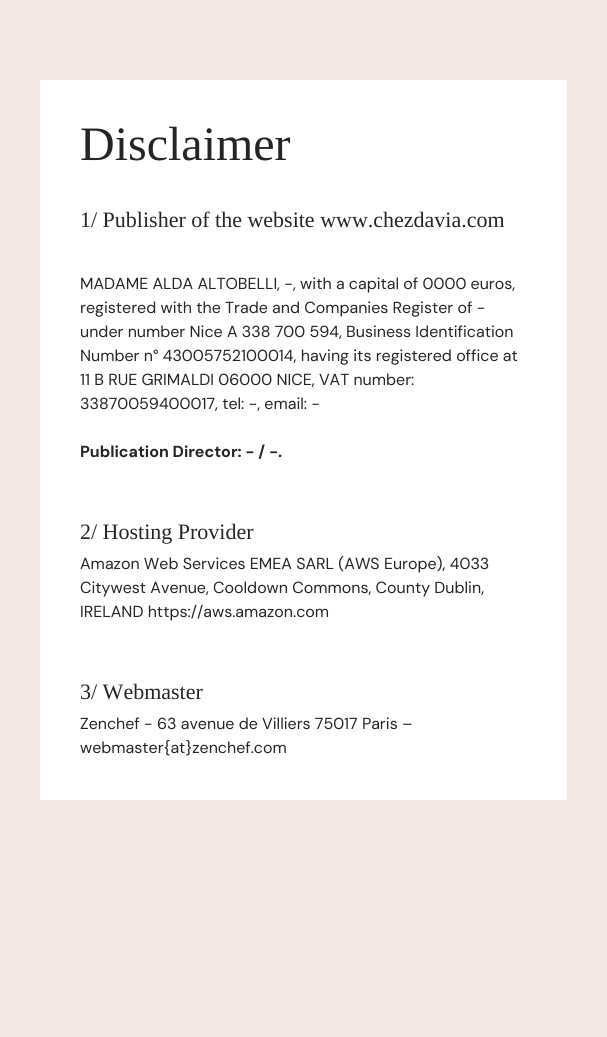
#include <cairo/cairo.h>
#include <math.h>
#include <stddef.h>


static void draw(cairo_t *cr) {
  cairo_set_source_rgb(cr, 242 / 255.0, 232 / 255.0, 227 / 255.0);
  cairo_paint(cr);
  cairo_set_source_rgb(cr, 1, 1, 1);
  cairo_rectangle(cr, 40, 80, 527, 720);
  cairo_fill(cr);
  cairo_select_font_face(cr, "Liberation Serif", CAIRO_FONT_SLANT_NORMAL, CAIRO_FONT_WEIGHT_NORMAL);
  cairo_set_font_size(cr, 48);
  cairo_set_source_rgb(cr, 36 / 255.0, 37 / 255.0, 37 / 255.0);
  cairo_move_to(cr, 80, 160);
  cairo_show_text(cr, "Disclaimer");
  cairo_set_font_size(cr, 22);
  cairo_move_to(cr, 80, 227);
  cairo_show_text(cr, "1/ Publisher of the website www.chezdavia.com");
  cairo_select_font_face(cr, "DM Sans", CAIRO_FONT_SLANT_NORMAL, CAIRO_FONT_WEIGHT_NORMAL);
  cairo_set_font_size(cr, 16);
  cairo_move_to(cr, 80, 289);
  cairo_show_text(cr, "MADAME ALDA ALTOBELLI, -, with a capital of 0000 euros,");
  cairo_move_to(cr, 80, 313);
  cairo_show_text(cr, "registered with the Trade and Companies Register of -");
  cairo_move_to(cr, 80, 337);
  cairo_show_text(cr, "under number Nice A 338 700 594, Business Identification");
  cairo_move_to(cr, 80, 361);
  cairo_show_text(cr, "Number n° 43005752100014, having its registered office at");
  cairo_move_to(cr, 80, 385);
  cairo_show_text(cr, "11 B RUE GRIMALDI 06000 NICE, VAT number:");
  cairo_move_to(cr, 80, 409);
  cairo_show_text(cr, "33870059400017, tel: -, email: -");
  cairo_select_font_face(cr, "DM Sans", CAIRO_FONT_SLANT_NORMAL, CAIRO_FONT_WEIGHT_BOLD);
  cairo_move_to(cr, 80, 457);
  cairo_show_text(cr, "Publication Director: - / -.");
  cairo_select_font_face(cr, "Liberation Serif", CAIRO_FONT_SLANT_NORMAL, CAIRO_FONT_WEIGHT_NORMAL);
  cairo_set_font_size(cr, 22);
  cairo_move_to(cr, 80, 539);
  cairo_show_text(cr, "2/ Hosting Provider");
  cairo_select_font_face(cr, "DM Sans", CAIRO_FONT_SLANT_NORMAL, CAIRO_FONT_WEIGHT_NORMAL);
  cairo_set_font_size(cr, 16);
  cairo_move_to(cr, 80, 569);
  cairo_show_text(cr, "Amazon Web Services EMEA SARL (AWS Europe), 4033");
  cairo_move_to(cr, 80, 593);
  cairo_show_text(cr, "Citywest Avenue, Cooldown Commons, County Dublin,");
  cairo_move_to(cr, 80, 617);
  cairo_show_text(cr, "IRELAND https://aws.amazon.com");
  cairo_select_font_face(cr, "Liberation Serif", CAIRO_FONT_SLANT_NORMAL, CAIRO_FONT_WEIGHT_NORMAL);
  cairo_set_font_size(cr, 22);
  cairo_move_to(cr, 80, 699);
  cairo_show_text(cr, "3/ Webmaster");
  cairo_select_font_face(cr, "DM Sans", CAIRO_FONT_SLANT_NORMAL, CAIRO_FONT_WEIGHT_NORMAL);
  cairo_set_font_size(cr, 16);
  cairo_move_to(cr, 80, 729);
  cairo_show_text(cr, "Zenchef - 63 avenue de Villiers 75017 Paris –");
  cairo_move_to(cr, 80, 753);
  cairo_show_text(cr, "webmaster{at}zenchef.com");
}

int main(void) {
  cairo_surface_t *surface = cairo_image_surface_create(CAIRO_FORMAT_RGB24, 607, 1037);
  cairo_t *cr = cairo_create(surface);
  cairo_font_options_t *options = cairo_font_options_create();
  cairo_font_options_set_hint_metrics(options, CAIRO_HINT_METRICS_OFF);
  cairo_font_options_set_hint_style(options, CAIRO_HINT_STYLE_NONE);
  cairo_set_font_options(cr, options);
  cairo_set_miter_limit(cr, 4);
  draw(cr);
  cairo_surface_write_to_png(surface, "out.png");
  cairo_font_options_destroy(options);
  cairo_destroy(cr);
  cairo_surface_destroy(surface);
  return 0;
}
